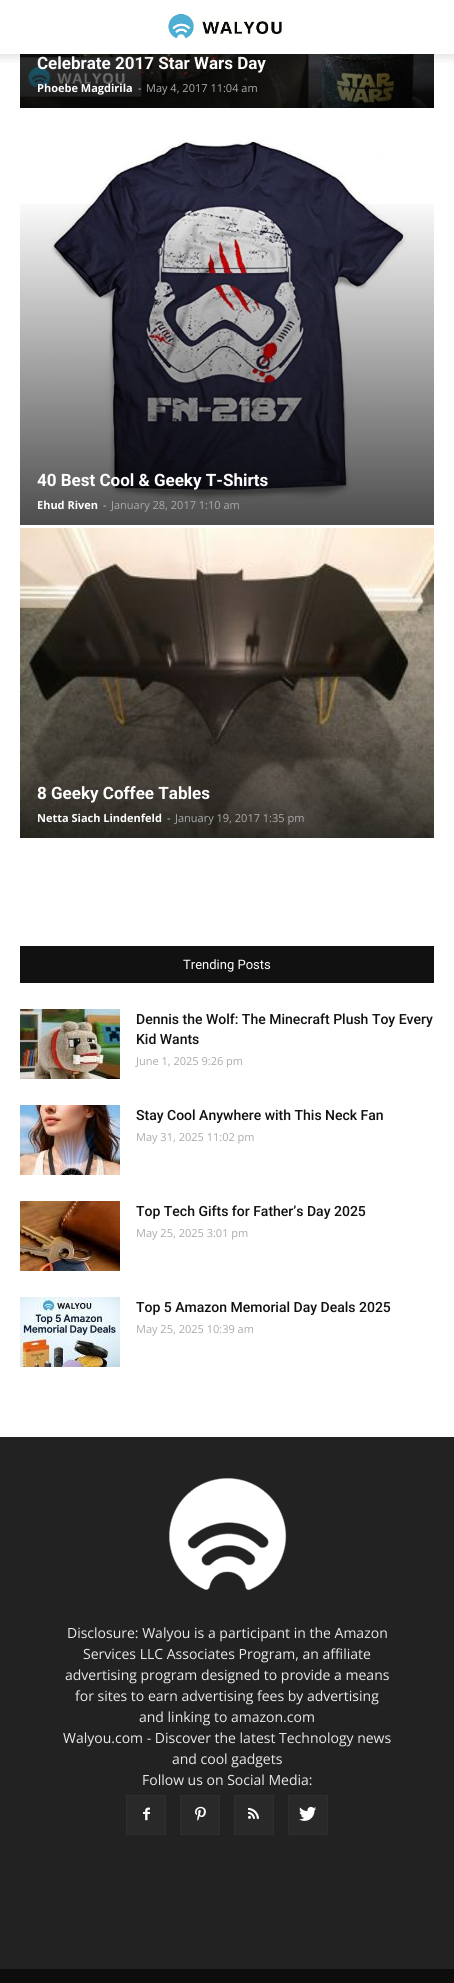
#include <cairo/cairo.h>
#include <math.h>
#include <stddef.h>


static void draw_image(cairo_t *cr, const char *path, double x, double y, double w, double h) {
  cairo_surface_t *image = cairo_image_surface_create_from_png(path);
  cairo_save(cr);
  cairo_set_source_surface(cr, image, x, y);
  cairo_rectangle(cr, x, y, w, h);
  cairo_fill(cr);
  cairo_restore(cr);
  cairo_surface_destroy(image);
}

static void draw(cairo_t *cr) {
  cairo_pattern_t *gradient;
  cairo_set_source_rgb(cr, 1, 1, 1);
  cairo_paint(cr);
  draw_image(cr, "images/1.png", 168, 13, 114, 25);
  draw_image(cr, "images/3.png", 20, 54, 414, 54);
  draw_image(cr, "images/4.png", 51, 139, 356, 364);
  gradient = cairo_pattern_create_linear(227, 194, 227, 525);
  cairo_pattern_add_color_stop_rgba(gradient, 0, 0, 0, 0, 0);
  cairo_pattern_add_color_stop_rgba(gradient, 1, 0, 0, 0, 0.7);
  cairo_set_source(cr, gradient);
  cairo_pattern_destroy(gradient);
  cairo_rectangle(cr, 20, 204, 414, 321);
  cairo_fill(cr);
  draw_image(cr, "images/5.png", 20, 528, 414, 310);
  cairo_set_source_rgb(cr, 17 / 255.0, 17 / 255.0, 17 / 255.0);
  cairo_rectangle(cr, 20, 946, 414, 37);
  cairo_fill(cr);
  draw_image(cr, "images/6.png", 20, 1009, 100, 70);
  draw_image(cr, "images/7.png", 20, 1105, 100, 70);
  draw_image(cr, "images/8.png", 20, 1201, 100, 70);
  draw_image(cr, "images/9.png", 20, 1297, 100, 70);
  cairo_set_source_rgb(cr, 34 / 255.0, 34 / 255.0, 34 / 255.0);
  cairo_rectangle(cr, 0, 1437, 454, 532);
  cairo_fill(cr);
  draw_image(cr, "images/10.png", 169, 1478, 118, 112);
  cairo_set_source_rgb(cr, 41 / 255.0, 41 / 255.0, 41 / 255.0);
  cairo_rectangle(cr, 127, 1796, 38, 38);
  cairo_fill(cr);
  draw_image(cr, "images/11.png", 143, 1807, 7, 14);
  cairo_rectangle(cr, 126.5, 1795.5, 39, 39);
  cairo_set_source_rgb(cr, 47 / 255.0, 47 / 255.0, 47 / 255.0);
  cairo_set_line_width(cr, 1);
  cairo_stroke(cr);
  cairo_set_source_rgb(cr, 41 / 255.0, 41 / 255.0, 41 / 255.0);
  cairo_rectangle(cr, 181, 1796, 38, 38);
  cairo_fill(cr);
  draw_image(cr, "images/12.png", 195, 1806, 11, 15);
  cairo_rectangle(cr, 180.5, 1795.5, 39, 39);
  cairo_set_source_rgb(cr, 47 / 255.0, 47 / 255.0, 47 / 255.0);
  cairo_stroke(cr);
  cairo_set_source_rgb(cr, 41 / 255.0, 41 / 255.0, 41 / 255.0);
  cairo_rectangle(cr, 235, 1796, 38, 38);
  cairo_fill(cr);
  draw_image(cr, "images/13.png", 248, 1807, 11, 12);
  cairo_rectangle(cr, 234.5, 1795.5, 39, 39);
  cairo_set_source_rgb(cr, 47 / 255.0, 47 / 255.0, 47 / 255.0);
  cairo_stroke(cr);
  cairo_set_source_rgb(cr, 41 / 255.0, 41 / 255.0, 41 / 255.0);
  cairo_rectangle(cr, 289, 1796, 38, 38);
  cairo_fill(cr);
  draw_image(cr, "images/14.png", 299, 1806, 18, 15);
  cairo_rectangle(cr, 288.5, 1795.5, 39, 39);
  cairo_set_source_rgb(cr, 47 / 255.0, 47 / 255.0, 47 / 255.0);
  cairo_stroke(cr);
  cairo_set_source_rgb(cr, 13 / 255.0, 13 / 255.0, 13 / 255.0);
  cairo_rectangle(cr, 0, 1969, 454, 14);
  cairo_fill(cr);
  cairo_select_font_face(cr, "Roboto", CAIRO_FONT_SLANT_NORMAL, CAIRO_FONT_WEIGHT_BOLD);
  cairo_set_font_size(cr, 17);
  cairo_set_source_rgb(cr, 1, 1, 1);
  cairo_move_to(cr, 37, 69);
  cairo_show_text(cr, "Celebrate 2017 Star Wars Day");
  draw_image(cr, "images/2.png", 0, 54, 454, 9);
  cairo_select_font_face(cr, "Open Sans", CAIRO_FONT_SLANT_NORMAL, CAIRO_FONT_WEIGHT_BOLD);
  cairo_set_font_size(cr, 11);
  cairo_move_to(cr, 37, 92);
  cairo_show_text(cr, "Phoebe Magdirila");
  cairo_select_font_face(cr, "Open Sans", CAIRO_FONT_SLANT_NORMAL, CAIRO_FONT_WEIGHT_NORMAL);
  cairo_set_source_rgb(cr, 204 / 255.0, 204 / 255.0, 204 / 255.0);
  cairo_move_to(cr, 138, 92);
  cairo_show_text(cr, "-");
  cairo_set_source_rgb(cr, 170 / 255.0, 170 / 255.0, 170 / 255.0);
  cairo_move_to(cr, 146, 92);
  cairo_show_text(cr, "May 4, 2017 11:04 am");
  cairo_select_font_face(cr, "Roboto", CAIRO_FONT_SLANT_NORMAL, CAIRO_FONT_WEIGHT_BOLD);
  cairo_set_font_size(cr, 17);
  cairo_set_source_rgb(cr, 1, 1, 1);
  cairo_move_to(cr, 37, 486);
  cairo_show_text(cr, "40 Best Cool & Geeky T-Shirts");
  cairo_select_font_face(cr, "Open Sans", CAIRO_FONT_SLANT_NORMAL, CAIRO_FONT_WEIGHT_BOLD);
  cairo_set_font_size(cr, 11);
  cairo_move_to(cr, 37, 509);
  cairo_show_text(cr, "Ehud Riven");
  cairo_select_font_face(cr, "Open Sans", CAIRO_FONT_SLANT_NORMAL, CAIRO_FONT_WEIGHT_NORMAL);
  cairo_set_source_rgb(cr, 204 / 255.0, 204 / 255.0, 204 / 255.0);
  cairo_move_to(cr, 103, 509);
  cairo_show_text(cr, "-");
  cairo_set_source_rgb(cr, 170 / 255.0, 170 / 255.0, 170 / 255.0);
  cairo_move_to(cr, 111, 509);
  cairo_show_text(cr, "January 28, 2017 1:10 am");
  cairo_select_font_face(cr, "Roboto", CAIRO_FONT_SLANT_NORMAL, CAIRO_FONT_WEIGHT_BOLD);
  cairo_set_font_size(cr, 17);
  cairo_set_source_rgb(cr, 1, 1, 1);
  cairo_move_to(cr, 37, 799);
  cairo_show_text(cr, "8 Geeky Coffee Tables");
  cairo_select_font_face(cr, "Open Sans", CAIRO_FONT_SLANT_NORMAL, CAIRO_FONT_WEIGHT_BOLD);
  cairo_set_font_size(cr, 11);
  cairo_move_to(cr, 37, 822);
  cairo_show_text(cr, "Netta Siach Lindenfeld");
  cairo_select_font_face(cr, "Open Sans", CAIRO_FONT_SLANT_NORMAL, CAIRO_FONT_WEIGHT_NORMAL);
  cairo_set_source_rgb(cr, 204 / 255.0, 204 / 255.0, 204 / 255.0);
  cairo_move_to(cr, 167, 822);
  cairo_show_text(cr, "-");
  cairo_set_source_rgb(cr, 170 / 255.0, 170 / 255.0, 170 / 255.0);
  cairo_move_to(cr, 175, 822);
  cairo_show_text(cr, "January 19, 2017 1:35 pm");
  cairo_select_font_face(cr, "Roboto", CAIRO_FONT_SLANT_NORMAL, CAIRO_FONT_WEIGHT_NORMAL);
  cairo_set_font_size(cr, 13);
  cairo_set_source_rgb(cr, 1, 1, 1);
  cairo_move_to(cr, 183, 969);
  cairo_show_text(cr, "Trending Posts");
  cairo_select_font_face(cr, "Roboto Medium", CAIRO_FONT_SLANT_NORMAL, CAIRO_FONT_WEIGHT_NORMAL);
  cairo_set_font_size(cr, 14);
  cairo_set_source_rgb(cr, 17 / 255.0, 17 / 255.0, 17 / 255.0);
  cairo_move_to(cr, 136, 1024);
  cairo_show_text(cr, "Dennis the Wolf: The Minecraft Plush Toy Every");
  cairo_move_to(cr, 136, 1044);
  cairo_show_text(cr, "Kid Wants");
  cairo_select_font_face(cr, "Open Sans", CAIRO_FONT_SLANT_NORMAL, CAIRO_FONT_WEIGHT_NORMAL);
  cairo_set_font_size(cr, 11);
  cairo_set_source_rgb(cr, 170 / 255.0, 170 / 255.0, 170 / 255.0);
  cairo_move_to(cr, 136, 1065);
  cairo_show_text(cr, "June 1, 2025 9:26 pm");
  cairo_select_font_face(cr, "Roboto Medium", CAIRO_FONT_SLANT_NORMAL, CAIRO_FONT_WEIGHT_NORMAL);
  cairo_set_font_size(cr, 14);
  cairo_set_source_rgb(cr, 17 / 255.0, 17 / 255.0, 17 / 255.0);
  cairo_move_to(cr, 136, 1120);
  cairo_show_text(cr, "Stay Cool Anywhere with This Neck Fan");
  cairo_select_font_face(cr, "Open Sans", CAIRO_FONT_SLANT_NORMAL, CAIRO_FONT_WEIGHT_NORMAL);
  cairo_set_font_size(cr, 11);
  cairo_set_source_rgb(cr, 170 / 255.0, 170 / 255.0, 170 / 255.0);
  cairo_move_to(cr, 136, 1141);
  cairo_show_text(cr, "May 31, 2025 11:02 pm");
  cairo_select_font_face(cr, "Roboto Medium", CAIRO_FONT_SLANT_NORMAL, CAIRO_FONT_WEIGHT_NORMAL);
  cairo_set_font_size(cr, 14);
  cairo_set_source_rgb(cr, 17 / 255.0, 17 / 255.0, 17 / 255.0);
  cairo_move_to(cr, 136, 1216);
  cairo_show_text(cr, "Top Tech Gifts for Father’s Day 2025");
  cairo_select_font_face(cr, "Open Sans", CAIRO_FONT_SLANT_NORMAL, CAIRO_FONT_WEIGHT_NORMAL);
  cairo_set_font_size(cr, 11);
  cairo_set_source_rgb(cr, 170 / 255.0, 170 / 255.0, 170 / 255.0);
  cairo_move_to(cr, 136, 1237);
  cairo_show_text(cr, "May 25, 2025 3:01 pm");
  cairo_select_font_face(cr, "Roboto Medium", CAIRO_FONT_SLANT_NORMAL, CAIRO_FONT_WEIGHT_NORMAL);
  cairo_set_font_size(cr, 14);
  cairo_set_source_rgb(cr, 17 / 255.0, 17 / 255.0, 17 / 255.0);
  cairo_move_to(cr, 136, 1312);
  cairo_show_text(cr, "Top 5 Amazon Memorial Day Deals 2025");
  cairo_select_font_face(cr, "Open Sans", CAIRO_FONT_SLANT_NORMAL, CAIRO_FONT_WEIGHT_NORMAL);
  cairo_set_font_size(cr, 11);
  cairo_set_source_rgb(cr, 170 / 255.0, 170 / 255.0, 170 / 255.0);
  cairo_move_to(cr, 136, 1333);
  cairo_show_text(cr, "May 25, 2025 10:39 am");
  cairo_set_font_size(cr, 14);
  cairo_set_source_rgb(cr, 234 / 255.0, 234 / 255.0, 234 / 255.0);
  cairo_move_to(cr, 67, 1638);
  cairo_show_text(cr, "Disclosure: Walyou is a participant in the Amazon");
  cairo_move_to(cr, 83, 1659);
  cairo_show_text(cr, "Services LLC Associates Program, an affiliate");
  cairo_move_to(cr, 65, 1680);
  cairo_show_text(cr, "advertising program designed to provide a means");
  cairo_move_to(cr, 75, 1701);
  cairo_show_text(cr, "for sites to earn advertising fees by advertising");
  cairo_move_to(cr, 139, 1722);
  cairo_show_text(cr, "and linking to amazon.com");
  cairo_move_to(cr, 63, 1743);
  cairo_show_text(cr, "Walyou.com - Discover the latest Technology news");
  cairo_move_to(cr, 172, 1764);
  cairo_show_text(cr, "and cool gadgets");
  cairo_move_to(cr, 142, 1785);
  cairo_show_text(cr, "Follow us on Social Media:");
}

int main(void) {
  cairo_surface_t *surface = cairo_image_surface_create(CAIRO_FORMAT_RGB24, 454, 1983);
  cairo_t *cr = cairo_create(surface);
  cairo_font_options_t *options = cairo_font_options_create();
  cairo_font_options_set_hint_metrics(options, CAIRO_HINT_METRICS_OFF);
  cairo_font_options_set_hint_style(options, CAIRO_HINT_STYLE_NONE);
  cairo_set_font_options(cr, options);
  cairo_set_miter_limit(cr, 4);
  draw(cr);
  cairo_surface_write_to_png(surface, "out.png");
  cairo_font_options_destroy(options);
  cairo_destroy(cr);
  cairo_surface_destroy(surface);
  return 0;
}
